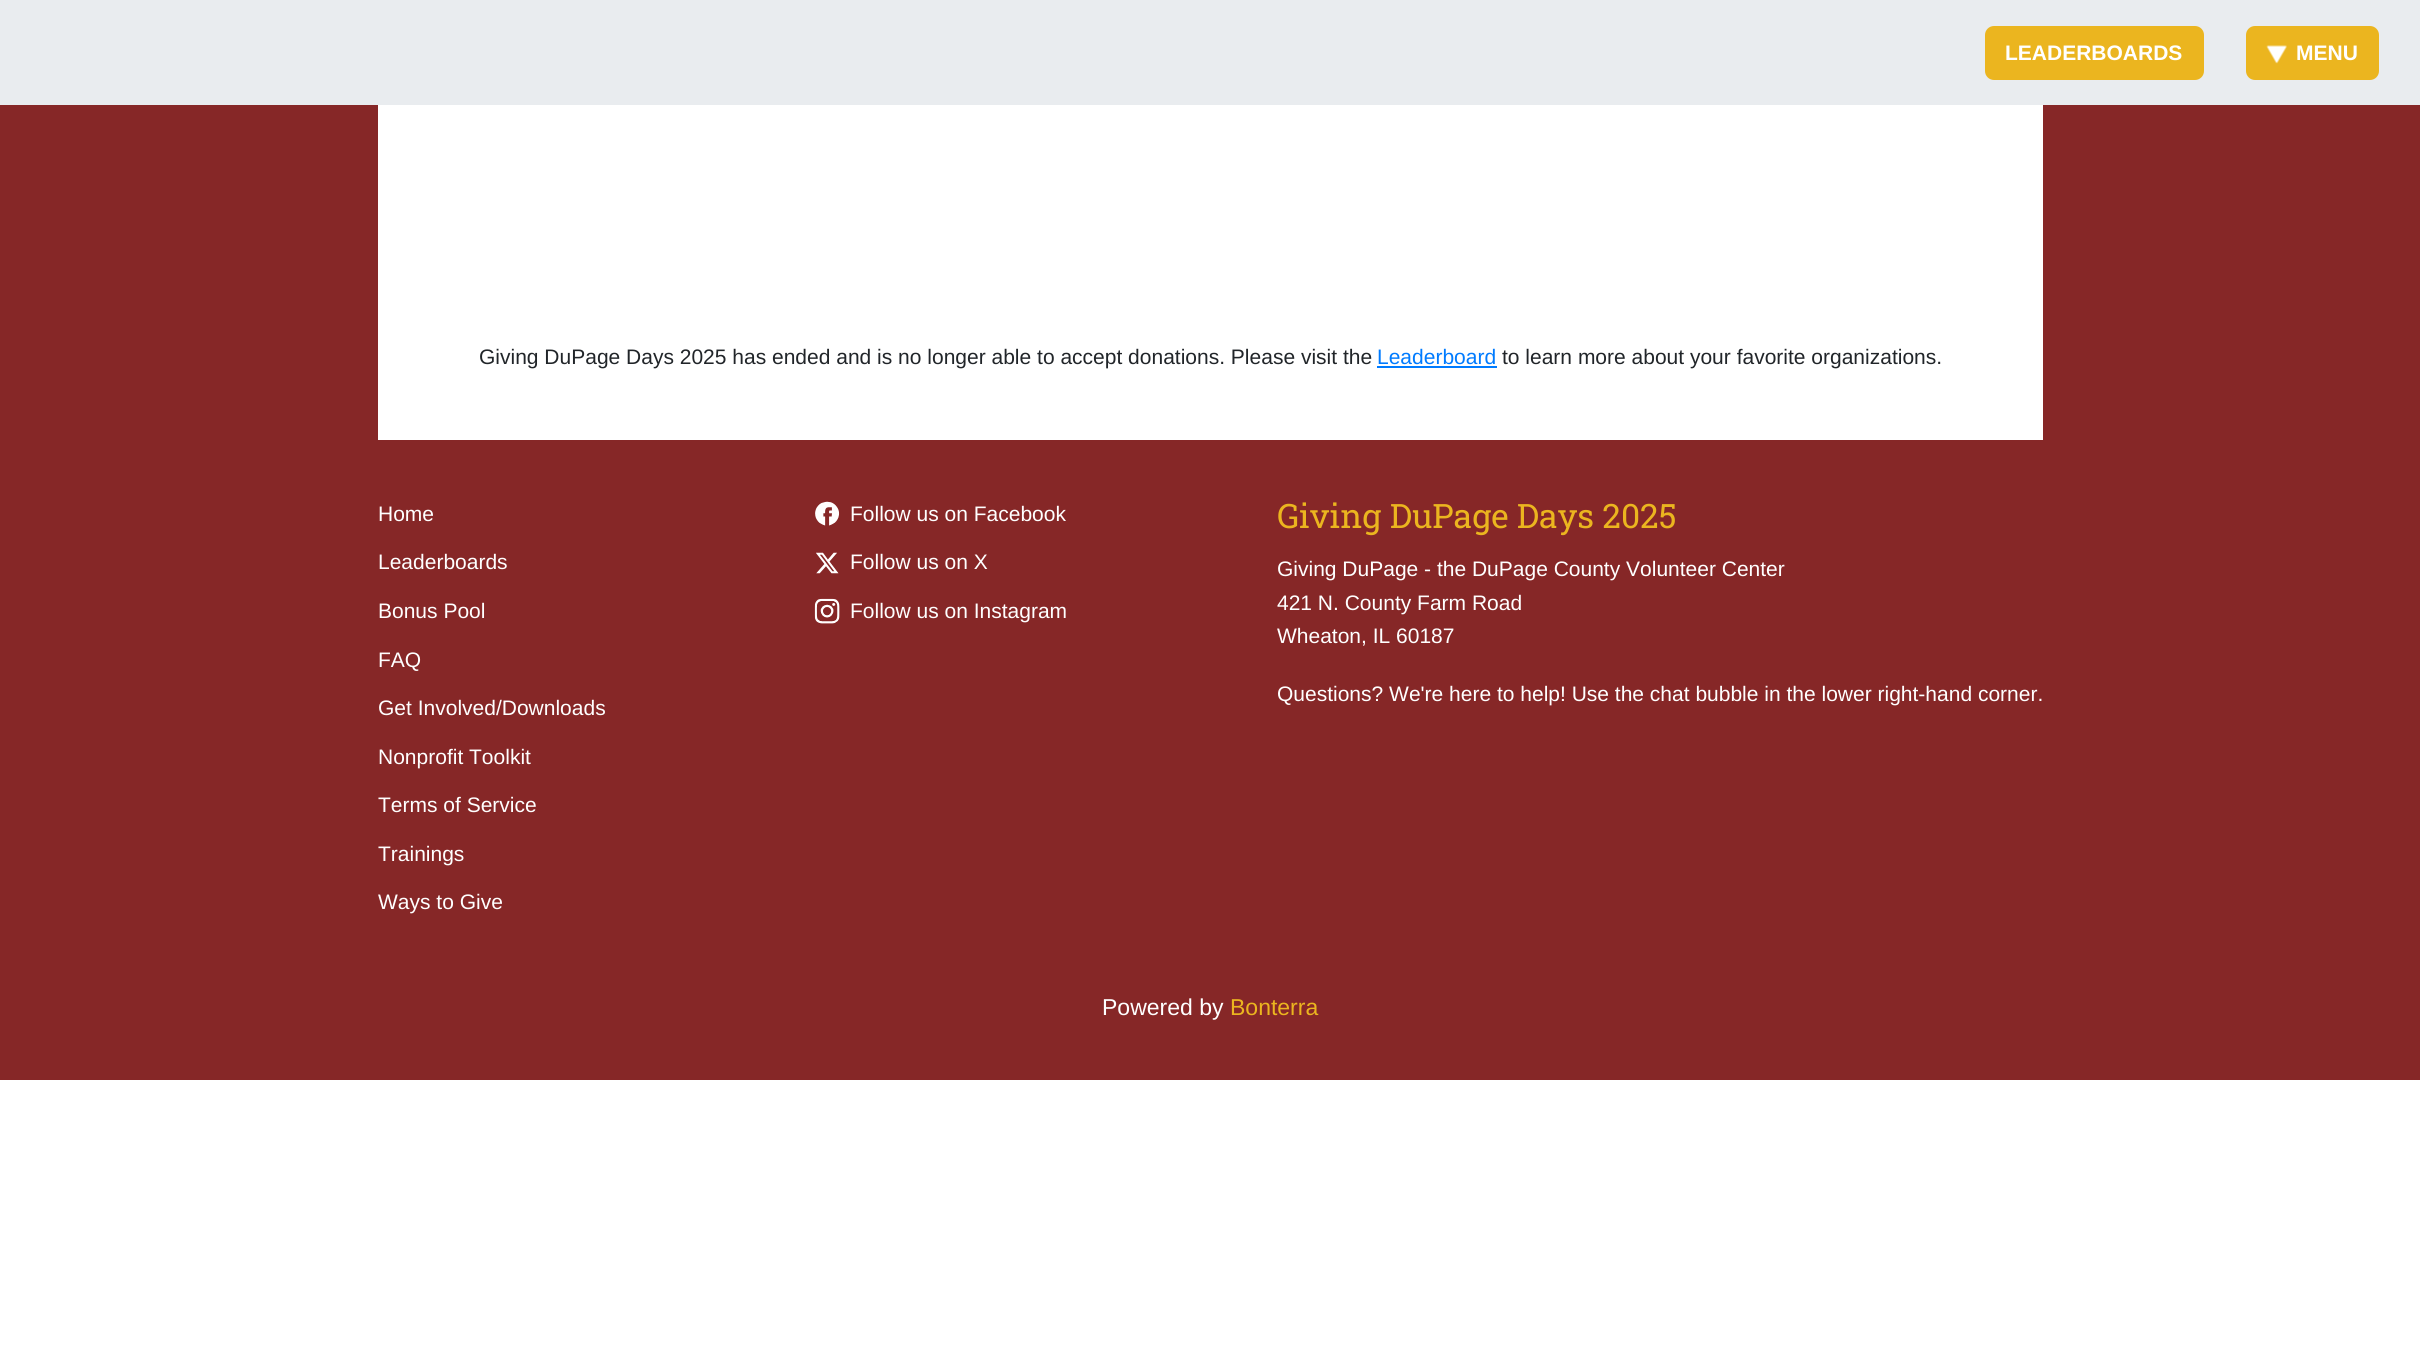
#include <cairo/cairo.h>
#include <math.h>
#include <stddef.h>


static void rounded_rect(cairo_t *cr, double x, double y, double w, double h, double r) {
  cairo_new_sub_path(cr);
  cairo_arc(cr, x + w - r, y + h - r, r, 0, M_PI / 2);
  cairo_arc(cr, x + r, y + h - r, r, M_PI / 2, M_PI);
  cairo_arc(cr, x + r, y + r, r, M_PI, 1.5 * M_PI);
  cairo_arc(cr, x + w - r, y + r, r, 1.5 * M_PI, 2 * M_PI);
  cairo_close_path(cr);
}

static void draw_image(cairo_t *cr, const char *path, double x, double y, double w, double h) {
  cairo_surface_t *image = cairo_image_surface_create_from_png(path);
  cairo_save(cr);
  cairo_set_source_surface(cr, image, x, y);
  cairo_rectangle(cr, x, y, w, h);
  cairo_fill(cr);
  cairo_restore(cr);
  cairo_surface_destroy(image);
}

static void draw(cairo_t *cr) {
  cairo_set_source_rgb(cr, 1, 1, 1);
  cairo_paint(cr);
  cairo_set_source_rgb(cr, 233 / 255.0, 236 / 255.0, 239 / 255.0);
  cairo_rectangle(cr, 0, 0, 2420, 105);
  cairo_fill(cr);
  cairo_set_source_rgb(cr, 235 / 255.0, 181 / 255.0, 31 / 255.0);
  rounded_rect(cr, 1985, 26, 219, 54, 9);
  cairo_fill(cr);
  rounded_rect(cr, 2246, 26, 133, 54, 9);
  cairo_fill(cr);
  draw_image(cr, "images/1.png", 2266, 45, 21, 19);
  cairo_set_source_rgb(cr, 134 / 255.0, 39 / 255.0, 39 / 255.0);
  cairo_rectangle(cr, 0, 105, 2420, 975);
  cairo_fill(cr);
  cairo_set_source_rgb(cr, 1, 1, 1);
  cairo_rectangle(cr, 378, 105, 1665, 335);
  cairo_fill(cr);
  cairo_set_source_rgb(cr, 0, 123 / 255.0, 1);
  cairo_rectangle(cr, 1377, 366, 120, 2);
  cairo_fill(cr);
  draw_image(cr, "images/2.png", 815, 501, 25, 25);
  draw_image(cr, "images/3.png", 816, 552, 23, 22);
  draw_image(cr, "images/4.png", 814, 598, 26, 26);
  cairo_select_font_face(cr, "Liberation Sans", CAIRO_FONT_SLANT_NORMAL, CAIRO_FONT_WEIGHT_BOLD);
  cairo_set_font_size(cr, 21);
  cairo_set_source_rgb(cr, 1, 1, 1);
  cairo_move_to(cr, 2005, 60);
  cairo_show_text(cr, "LEADERBOARDS");
  cairo_move_to(cr, 2296, 60);
  cairo_show_text(cr, "MENU");
  cairo_select_font_face(cr, "Liberation Sans", CAIRO_FONT_SLANT_NORMAL, CAIRO_FONT_WEIGHT_NORMAL);
  cairo_set_source_rgb(cr, 33 / 255.0, 37 / 255.0, 41 / 255.0);
  cairo_move_to(cr, 479, 364);
  cairo_show_text(cr, "Giving DuPage Days 2025 has ended and is no longer able to accept donations. Please visit the");
  cairo_set_source_rgb(cr, 0, 123 / 255.0, 1);
  cairo_move_to(cr, 1377, 364);
  cairo_show_text(cr, "Leaderboard");
  cairo_set_source_rgb(cr, 33 / 255.0, 37 / 255.0, 41 / 255.0);
  cairo_move_to(cr, 1502, 364);
  cairo_show_text(cr, "to learn more about your favorite organizations.");
  cairo_set_source_rgb(cr, 1, 1, 1);
  cairo_move_to(cr, 378, 521);
  cairo_show_text(cr, "Home");
  cairo_move_to(cr, 378, 569);
  cairo_show_text(cr, "Leaderboards");
  cairo_move_to(cr, 378, 618);
  cairo_show_text(cr, "Bonus Pool");
  cairo_move_to(cr, 378, 667);
  cairo_show_text(cr, "FAQ");
  cairo_move_to(cr, 378, 715);
  cairo_show_text(cr, "Get Involved/Downloads");
  cairo_move_to(cr, 378, 764);
  cairo_show_text(cr, "Nonprofit Toolkit");
  cairo_move_to(cr, 378, 812);
  cairo_show_text(cr, "Terms of Service");
  cairo_move_to(cr, 378, 861);
  cairo_show_text(cr, "Trainings");
  cairo_move_to(cr, 378, 909);
  cairo_show_text(cr, "Ways to Give");
  cairo_move_to(cr, 850, 521);
  cairo_show_text(cr, "Follow us on Facebook");
  cairo_move_to(cr, 850, 569);
  cairo_show_text(cr, "Follow us on X");
  cairo_move_to(cr, 850, 618);
  cairo_show_text(cr, "Follow us on Instagram");
  cairo_select_font_face(cr, "Roboto Slab", CAIRO_FONT_SLANT_NORMAL, CAIRO_FONT_WEIGHT_NORMAL);
  cairo_set_font_size(cr, 33.6);
  cairo_set_source_rgb(cr, 235 / 255.0, 181 / 255.0, 31 / 255.0);
  cairo_move_to(cr, 1277, 528);
  cairo_show_text(cr, "Giving DuPage Days 2025");
  cairo_select_font_face(cr, "Liberation Sans", CAIRO_FONT_SLANT_NORMAL, CAIRO_FONT_WEIGHT_NORMAL);
  cairo_set_font_size(cr, 21);
  cairo_set_source_rgb(cr, 1, 1, 1);
  cairo_move_to(cr, 1277, 576);
  cairo_show_text(cr, "Giving DuPage - the DuPage County Volunteer Center");
  cairo_move_to(cr, 1277, 610);
  cairo_show_text(cr, "421 N. County Farm Road");
  cairo_move_to(cr, 1277, 643);
  cairo_show_text(cr, "Wheaton, IL 60187");
  cairo_move_to(cr, 1277, 701);
  cairo_show_text(cr, "Questions? We're here to help! Use the chat bubble in the lower right-hand corner.");
  cairo_set_font_size(cr, 23);
  cairo_move_to(cr, 1102, 1015);
  cairo_show_text(cr, "Powered by");
  cairo_set_source_rgb(cr, 235 / 255.0, 181 / 255.0, 31 / 255.0);
  cairo_move_to(cr, 1230, 1015);
  cairo_show_text(cr, "Bonterra");
}

int main(void) {
  cairo_surface_t *surface = cairo_image_surface_create(CAIRO_FORMAT_RGB24, 2420, 1372);
  cairo_t *cr = cairo_create(surface);
  cairo_font_options_t *options = cairo_font_options_create();
  cairo_font_options_set_hint_metrics(options, CAIRO_HINT_METRICS_OFF);
  cairo_font_options_set_hint_style(options, CAIRO_HINT_STYLE_NONE);
  cairo_set_font_options(cr, options);
  cairo_set_miter_limit(cr, 4);
  draw(cr);
  cairo_surface_write_to_png(surface, "out.png");
  cairo_font_options_destroy(options);
  cairo_destroy(cr);
  cairo_surface_destroy(surface);
  return 0;
}
